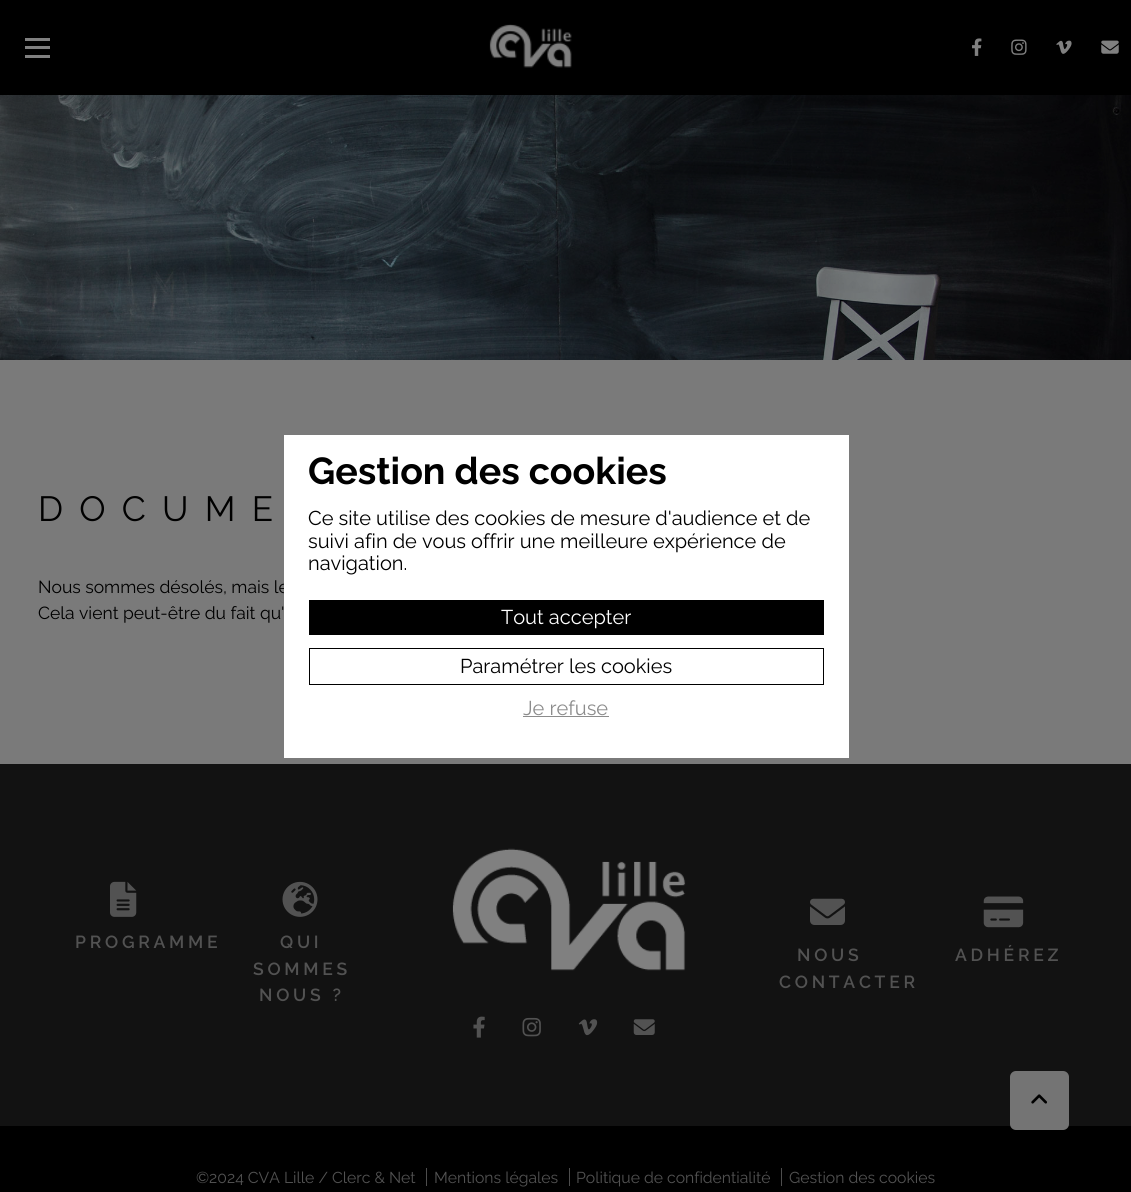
#include <cairo/cairo.h>
#include <math.h>
#include <stddef.h>


static void draw_spaced(cairo_t *cr, double x, double y, const char *s, double letter, double word) {
  cairo_move_to(cr, x, y);
  while (*s) {
    char ch[5] = {0};
    int n = 0;
    do ch[n++] = *s++; while ((*s & 0xC0) == 0x80);
    cairo_show_text(cr, ch);
    cairo_rel_move_to(cr, letter + word * (*ch == ' '), 0);
  }
}

static void rounded_rect(cairo_t *cr, double x, double y, double w, double h, double r) {
  cairo_new_sub_path(cr);
  cairo_arc(cr, x + w - r, y + h - r, r, 0, M_PI / 2);
  cairo_arc(cr, x + r, y + h - r, r, M_PI / 2, M_PI);
  cairo_arc(cr, x + r, y + r, r, M_PI, 1.5 * M_PI);
  cairo_arc(cr, x + w - r, y + r, r, 1.5 * M_PI, 2 * M_PI);
  cairo_close_path(cr);
}

static void draw_image(cairo_t *cr, const char *path, double x, double y, double w, double h) {
  cairo_surface_t *image = cairo_image_surface_create_from_png(path);
  cairo_save(cr);
  cairo_set_source_surface(cr, image, x, y);
  cairo_rectangle(cr, x, y, w, h);
  cairo_fill(cr);
  cairo_restore(cr);
  cairo_surface_destroy(image);
}

static void draw(cairo_t *cr) {
  cairo_set_source_rgb(cr, 18 / 255.0, 18 / 255.0, 18 / 255.0);
  cairo_paint(cr);
  cairo_set_source_rgb(cr, 0, 0, 0);
  cairo_rectangle(cr, 0, 0, 1131, 95);
  cairo_fill(cr);
  cairo_set_source_rgb(cr, 128 / 255.0, 128 / 255.0, 128 / 255.0);
  cairo_rectangle(cr, 25, 38, 25, 3);
  cairo_fill(cr);
  cairo_rectangle(cr, 25, 46, 25, 3);
  cairo_fill(cr);
  cairo_rectangle(cr, 25, 55, 25, 3);
  cairo_fill(cr);
  draw_image(cr, "images/1.png", 489, 24, 83, 44);
  draw_image(cr, "images/2.png", 972, 38, 10, 18);
  draw_image(cr, "images/3.png", 1011, 39, 16, 16);
  draw_image(cr, "images/4.png", 1056, 40, 16, 14);
  draw_image(cr, "images/5.png", 1101, 40, 18, 14);
  draw_image(cr, "images/6.png", 0, 95, 1131, 265);
  cairo_set_source_rgb(cr, 122 / 255.0, 122 / 255.0, 122 / 255.0);
  cairo_rectangle(cr, 0, 360, 1131, 404);
  cairo_fill(cr);
  draw_image(cr, "images/7.png", 110, 881, 27, 36);
  draw_image(cr, "images/8.png", 282, 881, 36, 36);
  draw_image(cr, "images/9.png", 452, 848, 234, 123);
  draw_image(cr, "images/10.png", 473, 1016, 12, 22);
  draw_image(cr, "images/11.png", 522, 1017, 19, 20);
  draw_image(cr, "images/12.png", 578, 1019, 20, 17);
  draw_image(cr, "images/13.png", 633, 1019, 22, 16);
  draw_image(cr, "images/14.png", 810, 898, 35, 27);
  draw_image(cr, "images/15.png", 983, 896, 41, 32);
  cairo_set_source_rgb(cr, 0, 0, 0);
  cairo_rectangle(cr, 0, 1126, 1131, 66);
  cairo_fill(cr);
  cairo_set_source_rgb(cr, 116 / 255.0, 116 / 255.0, 116 / 255.0);
  rounded_rect(cr, 1010, 1071, 59, 59, 6);
  cairo_fill(cr);
  draw_image(cr, "images/16.png", 1031, 1094, 16, 10);
  cairo_set_source_rgb(cr, 77 / 255.0, 77 / 255.0, 77 / 255.0);
  cairo_rectangle(cr, 426, 1168, 1, 18);
  cairo_fill(cr);
  cairo_rectangle(cr, 569, 1168, 1, 18);
  cairo_fill(cr);
  cairo_rectangle(cr, 781, 1168, 1, 18);
  cairo_fill(cr);
  cairo_select_font_face(cr, "Raleway", CAIRO_FONT_SLANT_NORMAL, CAIRO_FONT_WEIGHT_NORMAL);
  cairo_set_font_size(cr, 35);
  cairo_set_source_rgb(cr, 0, 0, 0);
  draw_spaced(cr, 38, 521, "DOCUME", 16.25, 0);
  cairo_set_font_size(cr, 17.5);
  cairo_move_to(cr, 38, 593);
  cairo_show_text(cr, "Nous sommes désolés, mais le");
  cairo_move_to(cr, 38, 619);
  cairo_show_text(cr, "Cela vient peut-être du fait qu'");
  cairo_set_source_rgb(cr, 1, 1, 1);
  cairo_rectangle(cr, 284, 435, 565, 323);
  cairo_fill(cr);
  cairo_select_font_face(cr, "Raleway", CAIRO_FONT_SLANT_NORMAL, CAIRO_FONT_WEIGHT_BOLD);
  cairo_set_font_size(cr, 37.5);
  cairo_set_source_rgb(cr, 0, 0, 0);
  cairo_move_to(cr, 308, 484);
  cairo_show_text(cr, "Gestion des cookies");
  cairo_select_font_face(cr, "Raleway", CAIRO_FONT_SLANT_NORMAL, CAIRO_FONT_WEIGHT_NORMAL);
  cairo_set_font_size(cr, 20);
  cairo_move_to(cr, 308, 525);
  cairo_show_text(cr, "Ce site utilise des cookies de mesure d'audience et de");
  cairo_move_to(cr, 308, 548);
  cairo_show_text(cr, "suivi afin de vous offrir une meilleure expérience de");
  cairo_move_to(cr, 308, 570);
  cairo_show_text(cr, "navigation.");
  cairo_rectangle(cr, 309, 600, 515, 35);
  cairo_fill(cr);
  cairo_set_source_rgb(cr, 1, 1, 1);
  cairo_move_to(cr, 501, 624);
  cairo_show_text(cr, "Tout accepter");
  cairo_rectangle(cr, 309.5, 648.5, 514, 36);
  cairo_set_source_rgb(cr, 0, 0, 0);
  cairo_set_line_width(cr, 1);
  cairo_stroke(cr);
  cairo_move_to(cr, 460, 673);
  cairo_show_text(cr, "Paramétrer les cookies");
  cairo_set_source_rgb(cr, 140 / 255.0, 140 / 255.0, 140 / 255.0);
  cairo_move_to(cr, 523, 715);
  cairo_show_text(cr, "Je refuse");
  cairo_rectangle(cr, 523, 716, 86, 1);
  cairo_fill(cr);
  cairo_select_font_face(cr, "Raleway SemiBold", CAIRO_FONT_SLANT_NORMAL, CAIRO_FONT_WEIGHT_NORMAL);
  cairo_set_font_size(cr, 17.5);
  cairo_set_source_rgb(cr, 82 / 255.0, 82 / 255.0, 82 / 255.0);
  draw_spaced(cr, 75, 948, "PROGRAMME", 3.75, 0);
  draw_spaced(cr, 280, 948, "QUI", 3.75, 0);
  draw_spaced(cr, 253, 975, "SOMMES", 3.75, 0);
  draw_spaced(cr, 259, 1001, "NOUS ?", 3.75, 0);
  draw_spaced(cr, 797, 961, "NOUS", 3.75, 0);
  draw_spaced(cr, 779, 988, "CONTACTER", 3.75, 0);
  draw_spaced(cr, 955, 961, "ADHÉREZ", 3.75, 0);
  cairo_select_font_face(cr, "Raleway", CAIRO_FONT_SLANT_NORMAL, CAIRO_FONT_WEIGHT_NORMAL);
  cairo_set_font_size(cr, 15.75);
  cairo_move_to(cr, 196, 1183);
  cairo_show_text(cr, "©2024 CVA Lille / Clerc & Net");
  cairo_move_to(cr, 434, 1183);
  cairo_show_text(cr, "Mentions légales");
  cairo_move_to(cr, 576, 1183);
  cairo_show_text(cr, "Politique de confidentialité");
  cairo_move_to(cr, 789, 1183);
  cairo_show_text(cr, "Gestion des cookies");
}

int main(void) {
  cairo_surface_t *surface = cairo_image_surface_create(CAIRO_FORMAT_RGB24, 1131, 1192);
  cairo_t *cr = cairo_create(surface);
  cairo_font_options_t *options = cairo_font_options_create();
  cairo_font_options_set_hint_metrics(options, CAIRO_HINT_METRICS_OFF);
  cairo_font_options_set_hint_style(options, CAIRO_HINT_STYLE_NONE);
  cairo_set_font_options(cr, options);
  cairo_set_miter_limit(cr, 4);
  draw(cr);
  cairo_surface_write_to_png(surface, "out.png");
  cairo_font_options_destroy(options);
  cairo_destroy(cr);
  cairo_surface_destroy(surface);
  return 0;
}
